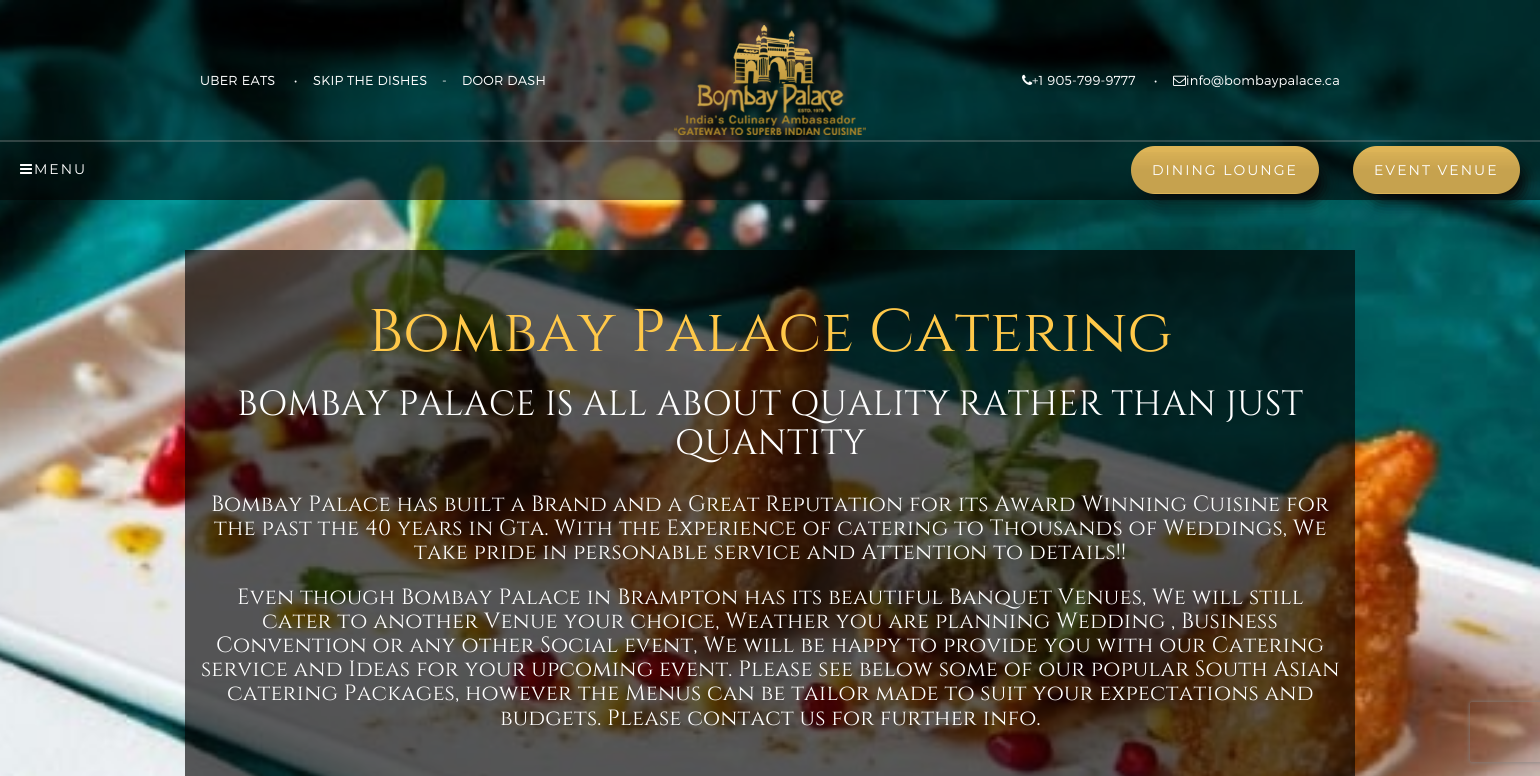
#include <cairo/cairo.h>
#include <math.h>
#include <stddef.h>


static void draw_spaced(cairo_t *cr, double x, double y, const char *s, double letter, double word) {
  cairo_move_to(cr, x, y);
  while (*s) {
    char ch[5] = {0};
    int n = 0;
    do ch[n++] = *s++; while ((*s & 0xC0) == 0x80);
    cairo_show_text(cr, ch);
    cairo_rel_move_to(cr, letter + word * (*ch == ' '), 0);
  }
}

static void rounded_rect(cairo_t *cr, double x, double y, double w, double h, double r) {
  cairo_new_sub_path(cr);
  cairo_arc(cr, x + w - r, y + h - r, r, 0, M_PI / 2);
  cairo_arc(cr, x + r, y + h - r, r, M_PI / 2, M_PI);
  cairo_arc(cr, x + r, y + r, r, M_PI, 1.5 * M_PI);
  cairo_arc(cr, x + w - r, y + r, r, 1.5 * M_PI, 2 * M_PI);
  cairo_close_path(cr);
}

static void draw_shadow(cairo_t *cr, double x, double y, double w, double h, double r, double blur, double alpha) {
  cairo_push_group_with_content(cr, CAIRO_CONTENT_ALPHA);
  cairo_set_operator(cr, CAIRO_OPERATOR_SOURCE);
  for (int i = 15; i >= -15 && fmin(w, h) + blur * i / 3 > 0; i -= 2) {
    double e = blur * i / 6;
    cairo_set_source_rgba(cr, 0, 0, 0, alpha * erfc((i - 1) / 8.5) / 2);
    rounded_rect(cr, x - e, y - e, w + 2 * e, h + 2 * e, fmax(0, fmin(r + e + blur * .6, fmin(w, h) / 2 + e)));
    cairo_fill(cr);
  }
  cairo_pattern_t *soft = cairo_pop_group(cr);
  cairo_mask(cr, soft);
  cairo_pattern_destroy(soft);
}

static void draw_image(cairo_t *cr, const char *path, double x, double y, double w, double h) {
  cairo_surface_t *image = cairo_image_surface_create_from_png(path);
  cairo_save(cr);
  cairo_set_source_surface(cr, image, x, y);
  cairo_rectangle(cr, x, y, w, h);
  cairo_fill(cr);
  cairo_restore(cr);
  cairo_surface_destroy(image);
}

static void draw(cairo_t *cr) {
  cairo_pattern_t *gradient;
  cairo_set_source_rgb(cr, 1, 1, 1);
  cairo_paint(cr);
  draw_image(cr, "images/5.png", 0, 0, 1540, 776);
  cairo_set_source_rgba(cr, 0, 0, 0, 0.56);
  cairo_rectangle(cr, 0, 0, 1540, 200);
  cairo_fill(cr);
  draw_image(cr, "images/1.png", 674, 25, 192, 110);
  draw_image(cr, "images/2.png", 1022, 74, 11, 11);
  draw_image(cr, "images/3.png", 1173, 75, 13, 11);
  cairo_set_source_rgba(cr, 161 / 255.0, 161 / 255.0, 161 / 255.0, 0.3);
  cairo_rectangle(cr, 0, 140, 1540, 1);
  cairo_fill(cr);
  cairo_rectangle(cr, 0, 141, 1540, 1);
  cairo_fill(cr);
  draw_image(cr, "images/4.png", 20, 164, 12, 10);
  cairo_set_source_rgb(cr, 7 / 255.0, 3 / 255.0, 4 / 255.0);
  draw_shadow(cr, 1147, 164, 176, 36, 18, 9, 1);
  cairo_set_source_rgb(cr, 221 / 255.0, 180 / 255.0, 87 / 255.0);
  rounded_rect(cr, 1131, 146, 188, 48, 24);
  cairo_fill(cr);
  cairo_save(cr);
  rounded_rect(cr, 1131, 146, 188, 48, 24);
  cairo_clip(cr);
  gradient = cairo_pattern_create_linear(1318, 147, 1318, 193);
  cairo_pattern_add_color_stop_rgba(gradient, 0, 0, 0, 0, 0);
  cairo_pattern_add_color_stop_rgba(gradient, 0.5, 0, 0, 0, 0.1);
  cairo_pattern_add_color_stop_rgba(gradient, 1, 0, 0, 0, 0.1);
  cairo_set_source(cr, gradient);
  cairo_pattern_destroy(gradient);
  cairo_rectangle(cr, 1131, 152, 188, 41);
  cairo_fill(cr);
  cairo_restore(cr);
  cairo_set_source_rgb(cr, 7 / 255.0, 3 / 255.0, 4 / 255.0);
  draw_shadow(cr, 1369, 164, 155, 36, 18, 9, 1);
  cairo_set_source_rgb(cr, 221 / 255.0, 180 / 255.0, 87 / 255.0);
  rounded_rect(cr, 1353, 146, 167, 48, 24);
  cairo_fill(cr);
  cairo_save(cr);
  rounded_rect(cr, 1353, 146, 167, 48, 24);
  cairo_clip(cr);
  gradient = cairo_pattern_create_linear(1519, 147, 1519, 193);
  cairo_pattern_add_color_stop_rgba(gradient, 0, 0, 0, 0, 0);
  cairo_pattern_add_color_stop_rgba(gradient, 0.5, 0, 0, 0, 0.1);
  cairo_pattern_add_color_stop_rgba(gradient, 1, 0, 0, 0, 0.1);
  cairo_set_source(cr, gradient);
  cairo_pattern_destroy(gradient);
  cairo_rectangle(cr, 1353, 152, 167, 41);
  cairo_fill(cr);
  cairo_restore(cr);
  cairo_set_source_rgba(cr, 2 / 255.0, 2 / 255.0, 2 / 255.0, 0.64);
  cairo_rectangle(cr, 185, 250, 1170, 526);
  cairo_fill(cr);
  cairo_save(cr);
  cairo_set_fill_rule(cr, CAIRO_FILL_RULE_EVEN_ODD);
  cairo_new_path(cr);
  cairo_move_to(cr, 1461, 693);
  cairo_line_to(cr, 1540, 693);
  cairo_line_to(cr, 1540, 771);
  cairo_line_to(cr, 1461, 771);
  cairo_close_path(cr);
  cairo_move_to(cr, 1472, 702);
  cairo_line_to(cr, 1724, 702);
  cairo_curve_to(cr, 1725, 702, 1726, 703, 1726, 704);
  cairo_line_to(cr, 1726, 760);
  cairo_curve_to(cr, 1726, 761, 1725, 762, 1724, 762);
  cairo_line_to(cr, 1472, 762);
  cairo_curve_to(cr, 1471, 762, 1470, 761, 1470, 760);
  cairo_line_to(cr, 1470, 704);
  cairo_curve_to(cr, 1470, 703, 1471, 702, 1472, 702);
  cairo_close_path(cr);
  cairo_clip(cr);
  cairo_set_source_rgb(cr, 128 / 255.0, 128 / 255.0, 128 / 255.0);
  draw_shadow(cr, 1470, 702, 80, 60, 2, 2.5, 1);
  cairo_restore(cr);
  cairo_select_font_face(cr, "Montserrat Light", CAIRO_FONT_SLANT_NORMAL, CAIRO_FONT_WEIGHT_NORMAL);
  cairo_set_font_size(cr, 13);
  cairo_set_source_rgb(cr, 1, 1, 1);
  draw_spaced(cr, 200, 85, "UBER EATS", 0.2, 0);
  draw_spaced(cr, 294, 85, "•", 0.2, 0);
  draw_spaced(cr, 313, 85, "SKIP THE DISHES", 0.2, 0);
  draw_spaced(cr, 442, 85, "-    DOOR DASH", 0.2, 0);
  draw_spaced(cr, 1032, 85, "+1 905-799-9777", 0.2, 0);
  draw_spaced(cr, 1154, 85, "•", 0.2, 0);
  draw_spaced(cr, 1186, 85, "info@bombaypalace.ca", 0.2, 0);
  cairo_select_font_face(cr, "Montserrat", CAIRO_FONT_SLANT_NORMAL, CAIRO_FONT_WEIGHT_NORMAL);
  cairo_set_font_size(cr, 14);
  draw_spaced(cr, 34, 174, "MENU", 2, 0);
  draw_spaced(cr, 1152, 175, "DINING LOUNGE", 2, 0);
  draw_spaced(cr, 1374, 175, "EVENT VENUE", 2, 0);
  cairo_select_font_face(cr, "Cinzel", CAIRO_FONT_SLANT_NORMAL, CAIRO_FONT_WEIGHT_NORMAL);
  cairo_set_font_size(cr, 60);
  cairo_set_source_rgb(cr, 1, 200 / 255.0, 73 / 255.0);
  draw_spaced(cr, 368, 351, "Bombay Palace Catering", 0.2, 0);
  cairo_set_font_size(cr, 35);
  cairo_set_source_rgb(cr, 1, 1, 1);
  draw_spaced(cr, 237, 415, "BOMBAY PALACE IS ALL ABOUT QUALITY RATHER THAN JUST", 0.2, 0);
  draw_spaced(cr, 675, 454, "QUANTITY", 0.2, 0);
  cairo_set_font_size(cr, 22);
  draw_spaced(cr, 211, 511, "Bombay Palace has built a Brand and a Great Reputation for its Award Winning Cuisine for", 0.2, 0);
  draw_spaced(cr, 214, 535, "the past the 40 years in Gta. With the Experience of catering to Thousands of Weddings, We", 0.2, 0);
  draw_spaced(cr, 414, 559, "take pride in personable service and Attention to details!!", 0.2, 0);
  draw_spaced(cr, 237, 604, "Even though Bombay Palace in Brampton has its beautiful Banquet Venues, We will still", 0.2, 0);
  draw_spaced(cr, 262, 628, "cater to another Venue your choice, Weather you are planning Wedding , Business", 0.2, 0);
  draw_spaced(cr, 216, 652, "Convention or any other Social event, We will be happy to provide you with our Catering", 0.2, 0);
  draw_spaced(cr, 201, 676, "service and Ideas for your upcoming event. Please see below some of our popular South Asian", 0.2, 0);
  draw_spaced(cr, 227, 700, "catering Packages, however the Menus can be tailor made to suit your expectations and", 0.2, 0);
  draw_spaced(cr, 500, 725, "budgets. Please contact us for further info.", 0.2, 0);
}

int main(void) {
  cairo_surface_t *surface = cairo_image_surface_create(CAIRO_FORMAT_RGB24, 1540, 776);
  cairo_t *cr = cairo_create(surface);
  cairo_font_options_t *options = cairo_font_options_create();
  cairo_font_options_set_hint_metrics(options, CAIRO_HINT_METRICS_OFF);
  cairo_font_options_set_hint_style(options, CAIRO_HINT_STYLE_NONE);
  cairo_set_font_options(cr, options);
  cairo_set_miter_limit(cr, 4);
  draw(cr);
  cairo_surface_write_to_png(surface, "out.png");
  cairo_font_options_destroy(options);
  cairo_destroy(cr);
  cairo_surface_destroy(surface);
  return 0;
}
